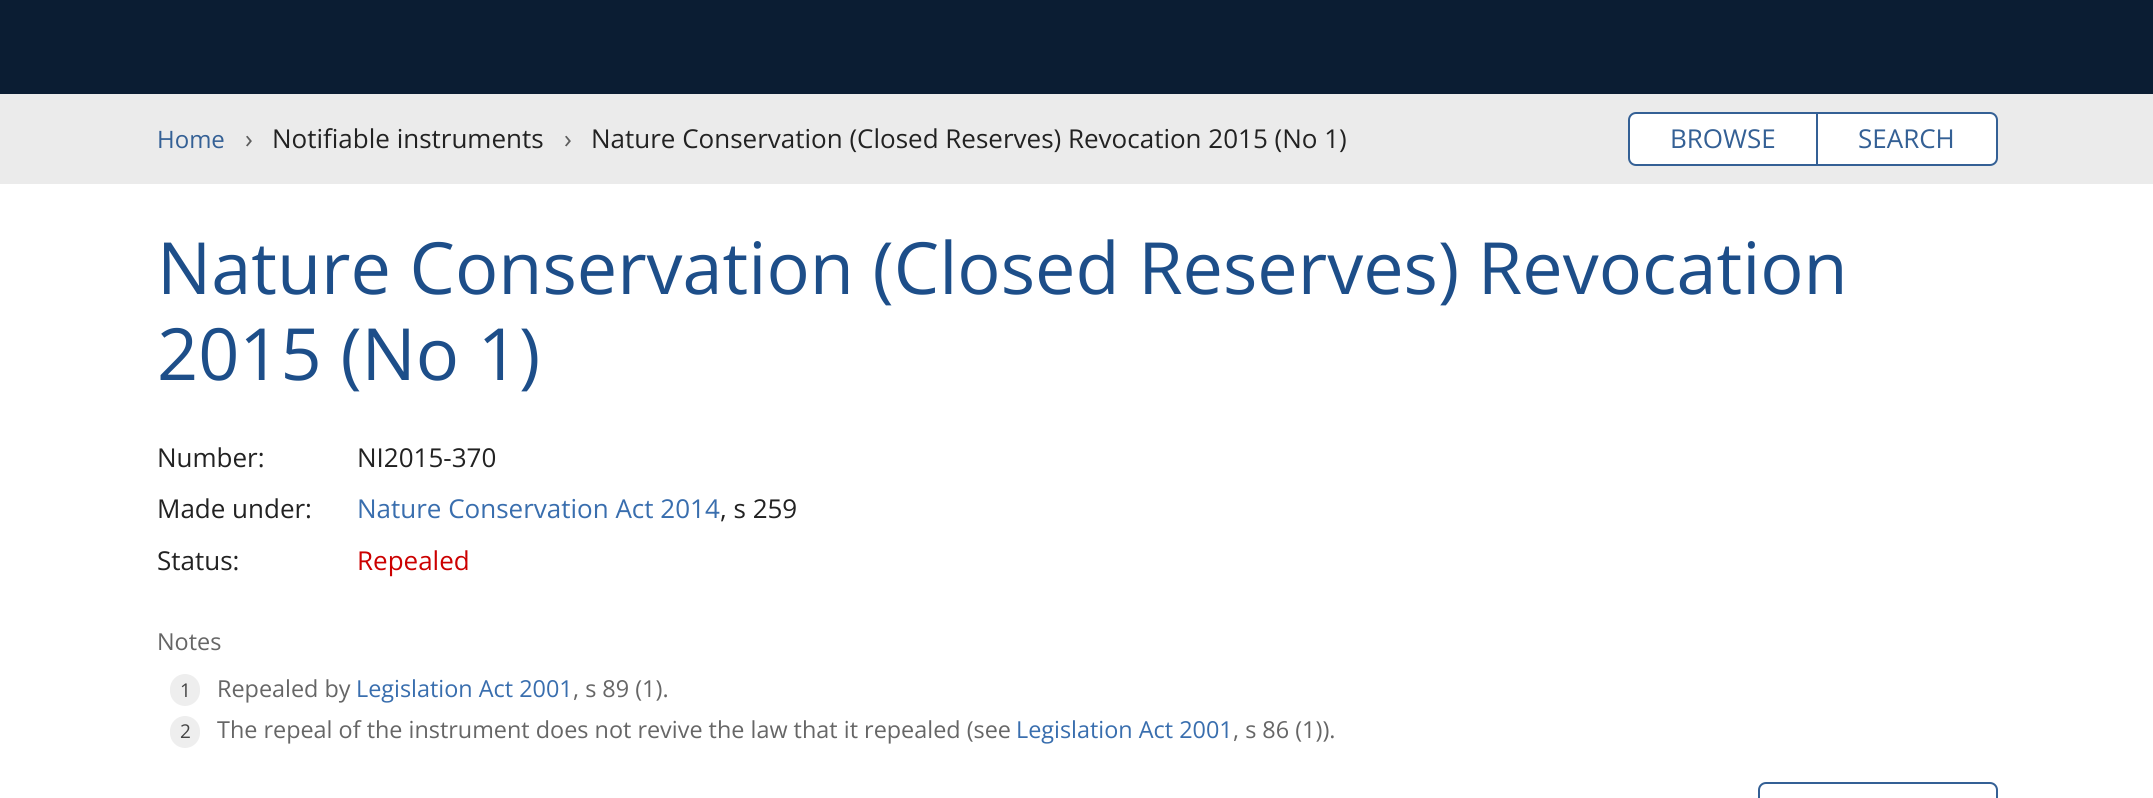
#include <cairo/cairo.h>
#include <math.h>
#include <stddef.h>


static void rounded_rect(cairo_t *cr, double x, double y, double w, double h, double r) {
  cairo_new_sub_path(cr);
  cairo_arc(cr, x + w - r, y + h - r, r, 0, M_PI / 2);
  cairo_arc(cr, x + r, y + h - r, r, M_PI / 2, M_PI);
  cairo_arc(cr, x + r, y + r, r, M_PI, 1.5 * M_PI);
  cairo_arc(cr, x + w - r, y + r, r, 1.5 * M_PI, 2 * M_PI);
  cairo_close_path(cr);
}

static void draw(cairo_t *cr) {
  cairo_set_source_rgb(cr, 1, 1, 1);
  cairo_paint(cr);
  cairo_set_source_rgb(cr, 11 / 255.0, 29 / 255.0, 51 / 255.0);
  cairo_rectangle(cr, 0, 0, 2153, 94);
  cairo_fill(cr);
  cairo_set_source_rgb(cr, 235 / 255.0, 235 / 255.0, 235 / 255.0);
  cairo_rectangle(cr, 0, 94, 2153, 90);
  cairo_fill(cr);
  cairo_set_source_rgb(cr, 1, 1, 1);
  rounded_rect(cr, 1629, 113, 368, 52, 7);
  cairo_fill_preserve(cr);
  cairo_set_source_rgb(cr, 52 / 255.0, 96 / 255.0, 149 / 255.0);
  cairo_stroke(cr);
  cairo_rectangle(cr, 1816, 114, 2, 50);
  cairo_fill(cr);
  cairo_set_source_rgb(cr, 238 / 255.0, 238 / 255.0, 238 / 255.0);
  rounded_rect(cr, 170, 674, 30, 32, 15);
  cairo_fill(cr);
  rounded_rect(cr, 170, 716, 30, 32, 15);
  cairo_fill(cr);
  rounded_rect(cr, 1759, 783, 238, 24, 7);
  cairo_set_source_rgb(cr, 52 / 255.0, 96 / 255.0, 149 / 255.0);
  cairo_stroke(cr);
  cairo_select_font_face(cr, "Open Sans", CAIRO_FONT_SLANT_NORMAL, CAIRO_FONT_WEIGHT_NORMAL);
  cairo_set_font_size(cr, 24);
  cairo_move_to(cr, 157, 148);
  cairo_show_text(cr, "Home");
  cairo_set_font_size(cr, 26);
  cairo_set_source_rgb(cr, 94 / 255.0, 94 / 255.0, 94 / 255.0);
  cairo_move_to(cr, 245, 148);
  cairo_show_text(cr, "›");
  cairo_set_source_rgb(cr, 34 / 255.0, 34 / 255.0, 34 / 255.0);
  cairo_move_to(cr, 272, 148);
  cairo_show_text(cr, "Notifiable instruments");
  cairo_set_source_rgb(cr, 94 / 255.0, 94 / 255.0, 94 / 255.0);
  cairo_move_to(cr, 564, 148);
  cairo_show_text(cr, "›");
  cairo_set_source_rgb(cr, 34 / 255.0, 34 / 255.0, 34 / 255.0);
  cairo_move_to(cr, 591, 148);
  cairo_show_text(cr, "Nature Conservation (Closed Reserves) Revocation 2015 (No 1)");
  cairo_set_source_rgb(cr, 52 / 255.0, 96 / 255.0, 149 / 255.0);
  cairo_move_to(cr, 1670, 148);
  cairo_show_text(cr, "BROWSE");
  cairo_move_to(cr, 1858, 148);
  cairo_show_text(cr, "SEARCH");
  cairo_set_font_size(cr, 72);
  cairo_set_source_rgb(cr, 29 / 255.0, 78 / 255.0, 137 / 255.0);
  cairo_move_to(cr, 157, 294);
  cairo_show_text(cr, "Nature Conservation (Closed Reserves) Revocation");
  cairo_move_to(cr, 157, 380);
  cairo_show_text(cr, "2015 (No 1)");
  cairo_set_font_size(cr, 26);
  cairo_set_source_rgb(cr, 34 / 255.0, 34 / 255.0, 34 / 255.0);
  cairo_move_to(cr, 157, 467);
  cairo_show_text(cr, "Number:");
  cairo_move_to(cr, 357, 467);
  cairo_show_text(cr, "NI2015-370");
  cairo_move_to(cr, 157, 518);
  cairo_show_text(cr, "Made under:");
  cairo_set_source_rgb(cr, 57 / 255.0, 110 / 255.0, 174 / 255.0);
  cairo_move_to(cr, 357, 518);
  cairo_show_text(cr, "Nature Conservation Act 2014");
  cairo_set_source_rgb(cr, 34 / 255.0, 34 / 255.0, 34 / 255.0);
  cairo_move_to(cr, 720, 518);
  cairo_show_text(cr, ", s 259");
  cairo_move_to(cr, 157, 570);
  cairo_show_text(cr, "Status:");
  cairo_set_source_rgb(cr, 204 / 255.0, 0, 0);
  cairo_move_to(cr, 357, 570);
  cairo_show_text(cr, "Repealed");
  cairo_set_font_size(cr, 23.4);
  cairo_set_source_rgb(cr, 102 / 255.0, 102 / 255.0, 102 / 255.0);
  cairo_move_to(cr, 157, 650);
  cairo_show_text(cr, "Notes");
  cairo_set_font_size(cr, 19);
  cairo_set_source_rgb(cr, 68 / 255.0, 68 / 255.0, 68 / 255.0);
  cairo_move_to(cr, 180, 697);
  cairo_show_text(cr, "1");
  cairo_set_font_size(cr, 23.4);
  cairo_set_source_rgb(cr, 102 / 255.0, 102 / 255.0, 102 / 255.0);
  cairo_move_to(cr, 217, 697);
  cairo_show_text(cr, "Repealed by");
  cairo_set_source_rgb(cr, 57 / 255.0, 110 / 255.0, 174 / 255.0);
  cairo_move_to(cr, 356, 697);
  cairo_show_text(cr, "Legislation Act 2001");
  cairo_set_source_rgb(cr, 102 / 255.0, 102 / 255.0, 102 / 255.0);
  cairo_move_to(cr, 573, 697);
  cairo_show_text(cr, ", s 89 (1).");
  cairo_set_font_size(cr, 19);
  cairo_set_source_rgb(cr, 68 / 255.0, 68 / 255.0, 68 / 255.0);
  cairo_move_to(cr, 180, 738);
  cairo_show_text(cr, "2");
  cairo_set_font_size(cr, 23.4);
  cairo_set_source_rgb(cr, 102 / 255.0, 102 / 255.0, 102 / 255.0);
  cairo_move_to(cr, 217, 738);
  cairo_show_text(cr, "The repeal of the instrument does not revive the law that it repealed (see");
  cairo_set_source_rgb(cr, 57 / 255.0, 110 / 255.0, 174 / 255.0);
  cairo_move_to(cr, 1016, 738);
  cairo_show_text(cr, "Legislation Act 2001");
  cairo_set_source_rgb(cr, 102 / 255.0, 102 / 255.0, 102 / 255.0);
  cairo_move_to(cr, 1233, 738);
  cairo_show_text(cr, ", s 86 (1)).");
}

int main(void) {
  cairo_surface_t *surface = cairo_image_surface_create(CAIRO_FORMAT_RGB24, 2153, 798);
  cairo_t *cr = cairo_create(surface);
  cairo_font_options_t *options = cairo_font_options_create();
  cairo_font_options_set_hint_metrics(options, CAIRO_HINT_METRICS_OFF);
  cairo_font_options_set_hint_style(options, CAIRO_HINT_STYLE_NONE);
  cairo_set_font_options(cr, options);
  cairo_set_miter_limit(cr, 4);
  draw(cr);
  cairo_surface_write_to_png(surface, "out.png");
  cairo_font_options_destroy(options);
  cairo_destroy(cr);
  cairo_surface_destroy(surface);
  return 0;
}
